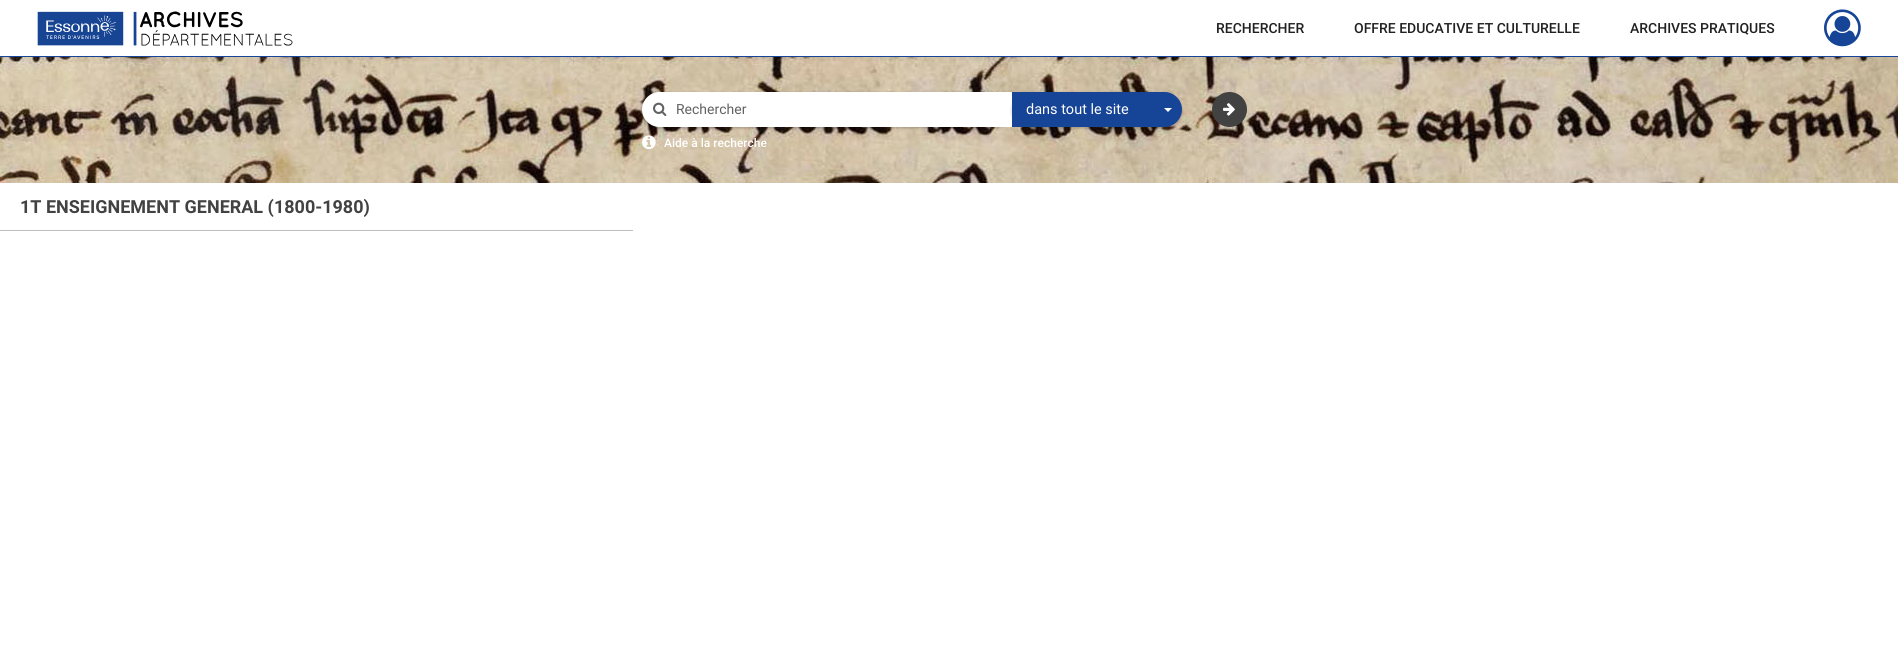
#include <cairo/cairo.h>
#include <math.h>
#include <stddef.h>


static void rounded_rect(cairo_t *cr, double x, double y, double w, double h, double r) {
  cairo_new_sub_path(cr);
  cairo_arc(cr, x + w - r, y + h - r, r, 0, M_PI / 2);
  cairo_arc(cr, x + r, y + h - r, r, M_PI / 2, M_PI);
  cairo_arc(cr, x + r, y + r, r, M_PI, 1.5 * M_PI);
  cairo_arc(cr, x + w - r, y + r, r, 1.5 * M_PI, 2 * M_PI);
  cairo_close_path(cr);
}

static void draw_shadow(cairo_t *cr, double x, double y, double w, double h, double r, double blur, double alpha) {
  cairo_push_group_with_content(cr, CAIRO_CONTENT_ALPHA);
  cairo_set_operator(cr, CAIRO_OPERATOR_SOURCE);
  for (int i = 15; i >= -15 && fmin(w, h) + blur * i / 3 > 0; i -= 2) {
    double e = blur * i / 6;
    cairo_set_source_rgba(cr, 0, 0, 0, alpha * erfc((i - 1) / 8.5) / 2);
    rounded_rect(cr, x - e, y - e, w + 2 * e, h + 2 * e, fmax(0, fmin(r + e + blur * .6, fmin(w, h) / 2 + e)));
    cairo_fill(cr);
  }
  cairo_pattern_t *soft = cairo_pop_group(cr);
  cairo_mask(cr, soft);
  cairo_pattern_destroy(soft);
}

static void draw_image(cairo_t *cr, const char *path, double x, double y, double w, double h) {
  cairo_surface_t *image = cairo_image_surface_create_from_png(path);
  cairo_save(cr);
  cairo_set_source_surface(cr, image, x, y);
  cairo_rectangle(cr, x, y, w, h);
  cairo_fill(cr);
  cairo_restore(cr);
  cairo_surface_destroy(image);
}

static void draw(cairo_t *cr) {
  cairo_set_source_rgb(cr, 1, 1, 1);
  cairo_paint(cr);
  cairo_set_source_rgb(cr, 22 / 255.0, 68 / 255.0, 150 / 255.0);
  cairo_rectangle(cr, 0, 56, 1898, 1);
  cairo_fill(cr);
  draw_image(cr, "images/1.png", 37, 11, 256, 35);
  draw_image(cr, "images/2.png", 1824, 9, 37, 38);
  draw_image(cr, "images/3.png", 0, 57, 1898, 126);
  cairo_set_source_rgb(cr, 0, 0, 0);
  draw_shadow(cr, 642, 93, 370, 35, 17.5, 1.5, 0.25);
  cairo_set_source_rgb(cr, 1, 1, 1);
  cairo_new_path(cr);
  cairo_move_to(cr, 659.5, 92);
  cairo_line_to(cr, 1012, 92);
  cairo_line_to(cr, 1012, 127);
  cairo_line_to(cr, 659.5, 127);
  cairo_curve_to(cr, 650, 127, 642, 119, 642, 109.5);
  cairo_curve_to(cr, 642, 100, 650, 92, 659.5, 92);
  cairo_close_path(cr);
  cairo_fill(cr);
  draw_image(cr, "images/4.png", 653, 102, 14, 14);
  cairo_set_source_rgb(cr, 0, 0, 0);
  draw_shadow(cr, 1012, 93, 170, 35, 17.5, 1.5, 0.25);
  cairo_set_source_rgb(cr, 22 / 255.0, 68 / 255.0, 150 / 255.0);
  cairo_new_path(cr);
  cairo_move_to(cr, 1012, 92);
  cairo_line_to(cr, 1164.5, 92);
  cairo_curve_to(cr, 1174, 92, 1182, 100, 1182, 109.5);
  cairo_curve_to(cr, 1182, 119, 1174, 127, 1164.5, 127);
  cairo_line_to(cr, 1012, 127);
  cairo_close_path(cr);
  cairo_fill(cr);
  cairo_set_source_rgb(cr, 1, 1, 1);
  cairo_new_path(cr);
  cairo_move_to(cr, 1164, 108);
  cairo_line_to(cr, 1172, 108);
  cairo_line_to(cr, 1168, 112);
  cairo_close_path(cr);
  cairo_fill(cr);
  cairo_set_source_rgb(cr, 66 / 255.0, 66 / 255.0, 66 / 255.0);
  cairo_arc(cr, 1229.5, 109.5, 17.5, 0, 2 * M_PI);
  cairo_fill(cr);
  draw_image(cr, "images/5.png", 1223, 103, 12, 13);
  draw_image(cr, "images/6.png", 642, 135, 14, 15);
  cairo_set_source_rgb(cr, 189 / 255.0, 189 / 255.0, 189 / 255.0);
  cairo_rectangle(cr, 0, 230, 633, 1);
  cairo_fill(cr);
  cairo_select_font_face(cr, "Roboto Medium", CAIRO_FONT_SLANT_NORMAL, CAIRO_FONT_WEIGHT_NORMAL);
  cairo_set_font_size(cr, 14);
  cairo_set_source_rgb(cr, 33 / 255.0, 33 / 255.0, 33 / 255.0);
  cairo_move_to(cr, 1216, 33);
  cairo_show_text(cr, "RECHERCHER");
  cairo_move_to(cr, 1354, 33);
  cairo_show_text(cr, "OFFRE EDUCATIVE ET CULTURELLE");
  cairo_move_to(cr, 1630, 33);
  cairo_show_text(cr, "ARCHIVES PRATIQUES");
  cairo_select_font_face(cr, "Roboto", CAIRO_FONT_SLANT_NORMAL, CAIRO_FONT_WEIGHT_NORMAL);
  cairo_set_source_rgb(cr, 97 / 255.0, 97 / 255.0, 97 / 255.0);
  cairo_move_to(cr, 676, 114);
  cairo_show_text(cr, "Rechercher");
  cairo_set_font_size(cr, 14.5);
  cairo_set_source_rgb(cr, 1, 1, 1);
  cairo_move_to(cr, 1026, 114);
  cairo_show_text(cr, "dans tout le site");
  cairo_select_font_face(cr, "Roboto Medium", CAIRO_FONT_SLANT_NORMAL, CAIRO_FONT_WEIGHT_NORMAL);
  cairo_set_font_size(cr, 12);
  cairo_move_to(cr, 664, 147);
  cairo_show_text(cr, "Aide à la recherche");
  cairo_select_font_face(cr, "Roboto", CAIRO_FONT_SLANT_NORMAL, CAIRO_FONT_WEIGHT_BOLD);
  cairo_set_font_size(cr, 18);
  cairo_set_source_rgb(cr, 66 / 255.0, 66 / 255.0, 66 / 255.0);
  cairo_move_to(cr, 20, 213);
  cairo_show_text(cr, "1T ENSEIGNEMENT GENERAL (1800-1980)");
}

int main(void) {
  cairo_surface_t *surface = cairo_image_surface_create(CAIRO_FORMAT_RGB24, 1898, 649);
  cairo_t *cr = cairo_create(surface);
  cairo_font_options_t *options = cairo_font_options_create();
  cairo_font_options_set_hint_metrics(options, CAIRO_HINT_METRICS_OFF);
  cairo_font_options_set_hint_style(options, CAIRO_HINT_STYLE_NONE);
  cairo_set_font_options(cr, options);
  cairo_set_miter_limit(cr, 4);
  draw(cr);
  cairo_surface_write_to_png(surface, "out.png");
  cairo_font_options_destroy(options);
  cairo_destroy(cr);
  cairo_surface_destroy(surface);
  return 0;
}
